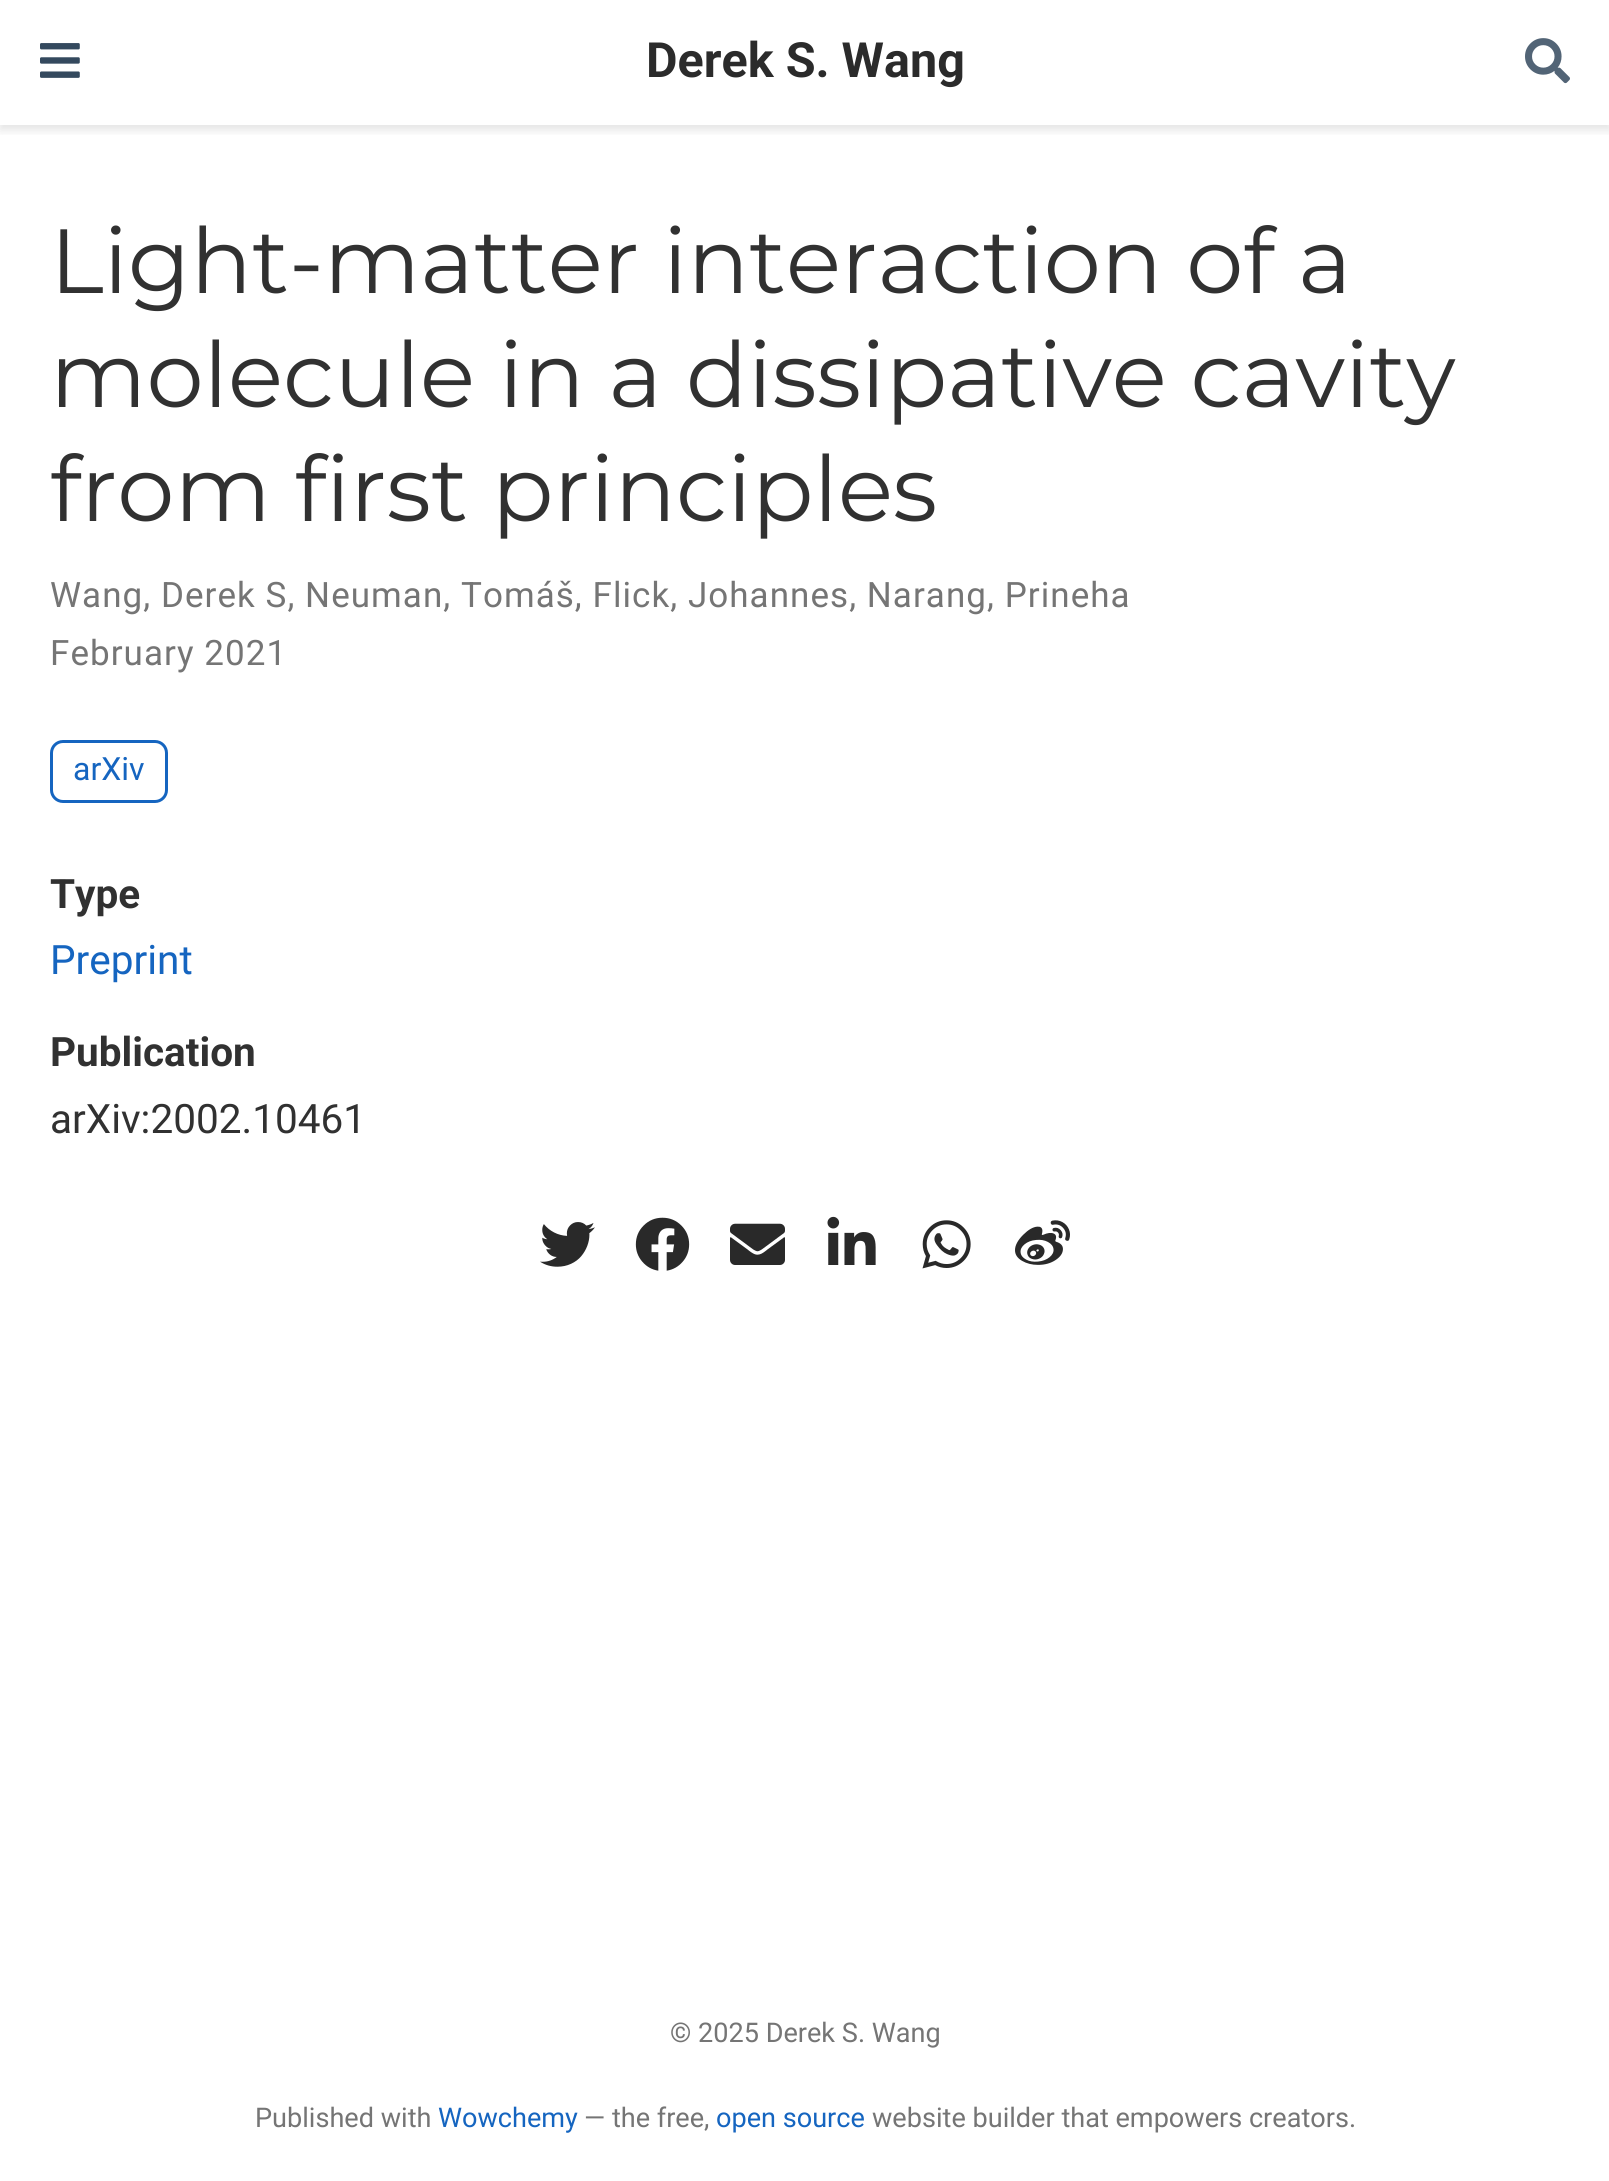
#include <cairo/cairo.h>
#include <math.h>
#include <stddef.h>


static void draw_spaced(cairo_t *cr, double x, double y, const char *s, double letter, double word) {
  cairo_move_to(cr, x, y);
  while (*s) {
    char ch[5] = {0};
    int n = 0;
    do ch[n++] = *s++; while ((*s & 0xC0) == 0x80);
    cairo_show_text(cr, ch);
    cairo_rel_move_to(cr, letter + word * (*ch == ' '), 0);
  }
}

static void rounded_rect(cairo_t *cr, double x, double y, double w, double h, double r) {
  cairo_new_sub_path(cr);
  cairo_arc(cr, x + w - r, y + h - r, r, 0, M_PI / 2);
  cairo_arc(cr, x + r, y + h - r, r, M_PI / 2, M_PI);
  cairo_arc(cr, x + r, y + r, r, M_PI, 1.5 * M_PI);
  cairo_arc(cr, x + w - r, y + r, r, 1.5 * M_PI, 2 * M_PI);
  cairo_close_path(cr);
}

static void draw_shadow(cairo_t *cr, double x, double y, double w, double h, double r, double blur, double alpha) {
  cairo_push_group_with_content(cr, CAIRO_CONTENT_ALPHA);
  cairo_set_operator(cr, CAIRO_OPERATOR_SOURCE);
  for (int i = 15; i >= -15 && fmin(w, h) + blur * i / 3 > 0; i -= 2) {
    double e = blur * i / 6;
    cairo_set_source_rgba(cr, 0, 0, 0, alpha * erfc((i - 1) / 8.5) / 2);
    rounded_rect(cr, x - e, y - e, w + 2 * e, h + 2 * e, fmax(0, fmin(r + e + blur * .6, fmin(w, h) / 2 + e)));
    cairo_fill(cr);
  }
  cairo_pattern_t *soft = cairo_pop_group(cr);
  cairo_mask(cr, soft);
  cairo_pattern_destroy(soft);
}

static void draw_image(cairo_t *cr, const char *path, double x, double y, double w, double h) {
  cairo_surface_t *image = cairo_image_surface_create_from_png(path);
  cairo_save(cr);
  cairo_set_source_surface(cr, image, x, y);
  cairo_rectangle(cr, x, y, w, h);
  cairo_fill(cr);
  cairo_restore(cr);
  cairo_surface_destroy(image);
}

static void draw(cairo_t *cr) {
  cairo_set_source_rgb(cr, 1, 1, 1);
  cairo_paint(cr);
  cairo_save(cr);
  cairo_rectangle(cr, 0, 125, 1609, 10);
  cairo_clip(cr);
  cairo_set_source_rgb(cr, 0, 0, 0);
  draw_shadow(cr, 0, 5, 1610, 125, 0, 5, 0.11);
  cairo_restore(cr);
  draw_image(cr, "images/1.png", 40, 43, 40, 35);
  draw_image(cr, "images/2.png", 1525, 38, 45, 46);
  rounded_rect(cr, 51.5, 741.5, 115, 60, 11.5);
  cairo_set_source_rgb(cr, 21 / 255.0, 101 / 255.0, 192 / 255.0);
  cairo_set_line_width(cr, 3);
  cairo_stroke(cr);
  draw_image(cr, "images/3.png", 540, 1222, 55, 45);
  draw_image(cr, "images/4.png", 635, 1217, 55, 54);
  draw_image(cr, "images/5.png", 730, 1223, 55, 42);
  draw_image(cr, "images/6.png", 827, 1216, 49, 49);
  draw_image(cr, "images/7.png", 922, 1220, 49, 49);
  draw_image(cr, "images/8.png", 1015, 1220, 55, 45);
  cairo_select_font_face(cr, "Roboto", CAIRO_FONT_SLANT_NORMAL, CAIRO_FONT_WEIGHT_BOLD);
  cairo_set_font_size(cr, 48.5);
  cairo_set_source_rgb(cr, 43 / 255.0, 43 / 255.0, 43 / 255.0);
  cairo_move_to(cr, 646, 77);
  cairo_show_text(cr, "Derek S. Wang");
  cairo_select_font_face(cr, "Montserrat", CAIRO_FONT_SLANT_NORMAL, CAIRO_FONT_WEIGHT_NORMAL);
  cairo_set_font_size(cr, 91);
  cairo_set_source_rgb(cr, 49 / 255.0, 49 / 255.0, 49 / 255.0);
  cairo_move_to(cr, 50, 293);
  cairo_show_text(cr, "Light-matter interaction of a");
  cairo_move_to(cr, 50, 407);
  cairo_show_text(cr, "molecule in a dissipative cavity");
  cairo_move_to(cr, 50, 521);
  cairo_show_text(cr, "from first principles");
  cairo_select_font_face(cr, "Roboto", CAIRO_FONT_SLANT_NORMAL, CAIRO_FONT_WEIGHT_NORMAL);
  cairo_set_font_size(cr, 35);
  cairo_set_source_rgb(cr, 117 / 255.0, 117 / 255.0, 117 / 255.0);
  draw_spaced(cr, 50, 607, "Wang, Derek S, Neuman, Tomáš, Flick, Johannes, Narang, Prineha", 1.05, 0);
  draw_spaced(cr, 50, 665, "February 2021", 1.05, 0);
  cairo_set_font_size(cr, 32);
  cairo_set_source_rgb(cr, 21 / 255.0, 101 / 255.0, 192 / 255.0);
  cairo_move_to(cr, 73, 780);
  cairo_show_text(cr, "arXiv");
  cairo_select_font_face(cr, "Roboto", CAIRO_FONT_SLANT_NORMAL, CAIRO_FONT_WEIGHT_BOLD);
  cairo_set_font_size(cr, 40.5);
  cairo_set_source_rgb(cr, 49 / 255.0, 49 / 255.0, 49 / 255.0);
  cairo_move_to(cr, 50, 908);
  cairo_show_text(cr, "Type");
  cairo_select_font_face(cr, "Roboto", CAIRO_FONT_SLANT_NORMAL, CAIRO_FONT_WEIGHT_NORMAL);
  cairo_set_source_rgb(cr, 21 / 255.0, 101 / 255.0, 192 / 255.0);
  cairo_move_to(cr, 50, 974);
  cairo_show_text(cr, "Preprint");
  cairo_select_font_face(cr, "Roboto", CAIRO_FONT_SLANT_NORMAL, CAIRO_FONT_WEIGHT_BOLD);
  cairo_set_source_rgb(cr, 49 / 255.0, 49 / 255.0, 49 / 255.0);
  cairo_move_to(cr, 50, 1066);
  cairo_show_text(cr, "Publication");
  cairo_select_font_face(cr, "Roboto", CAIRO_FONT_SLANT_NORMAL, CAIRO_FONT_WEIGHT_NORMAL);
  cairo_move_to(cr, 50, 1133);
  cairo_show_text(cr, "arXiv:2002.10461");
  cairo_set_font_size(cr, 27.1);
  cairo_set_source_rgb(cr, 117 / 255.0, 117 / 255.0, 117 / 255.0);
  cairo_move_to(cr, 670, 2042);
  cairo_show_text(cr, "© 2025 Derek S. Wang");
  cairo_move_to(cr, 255, 2127);
  cairo_show_text(cr, "Published with");
  cairo_set_source_rgb(cr, 21 / 255.0, 101 / 255.0, 192 / 255.0);
  cairo_move_to(cr, 438, 2127);
  cairo_show_text(cr, "Wowchemy");
  cairo_set_source_rgb(cr, 117 / 255.0, 117 / 255.0, 117 / 255.0);
  cairo_move_to(cr, 584, 2127);
  cairo_show_text(cr, "— the free,");
  cairo_set_source_rgb(cr, 21 / 255.0, 101 / 255.0, 192 / 255.0);
  cairo_move_to(cr, 716, 2127);
  cairo_show_text(cr, "open source");
  cairo_set_source_rgb(cr, 117 / 255.0, 117 / 255.0, 117 / 255.0);
  cairo_move_to(cr, 872, 2127);
  cairo_show_text(cr, "website builder that empowers creators.");
}

int main(void) {
  cairo_surface_t *surface = cairo_image_surface_create(CAIRO_FORMAT_RGB24, 1609, 2181);
  cairo_t *cr = cairo_create(surface);
  cairo_font_options_t *options = cairo_font_options_create();
  cairo_font_options_set_hint_metrics(options, CAIRO_HINT_METRICS_OFF);
  cairo_font_options_set_hint_style(options, CAIRO_HINT_STYLE_NONE);
  cairo_set_font_options(cr, options);
  cairo_set_miter_limit(cr, 4);
  draw(cr);
  cairo_surface_write_to_png(surface, "out.png");
  cairo_font_options_destroy(options);
  cairo_destroy(cr);
  cairo_surface_destroy(surface);
  return 0;
}
